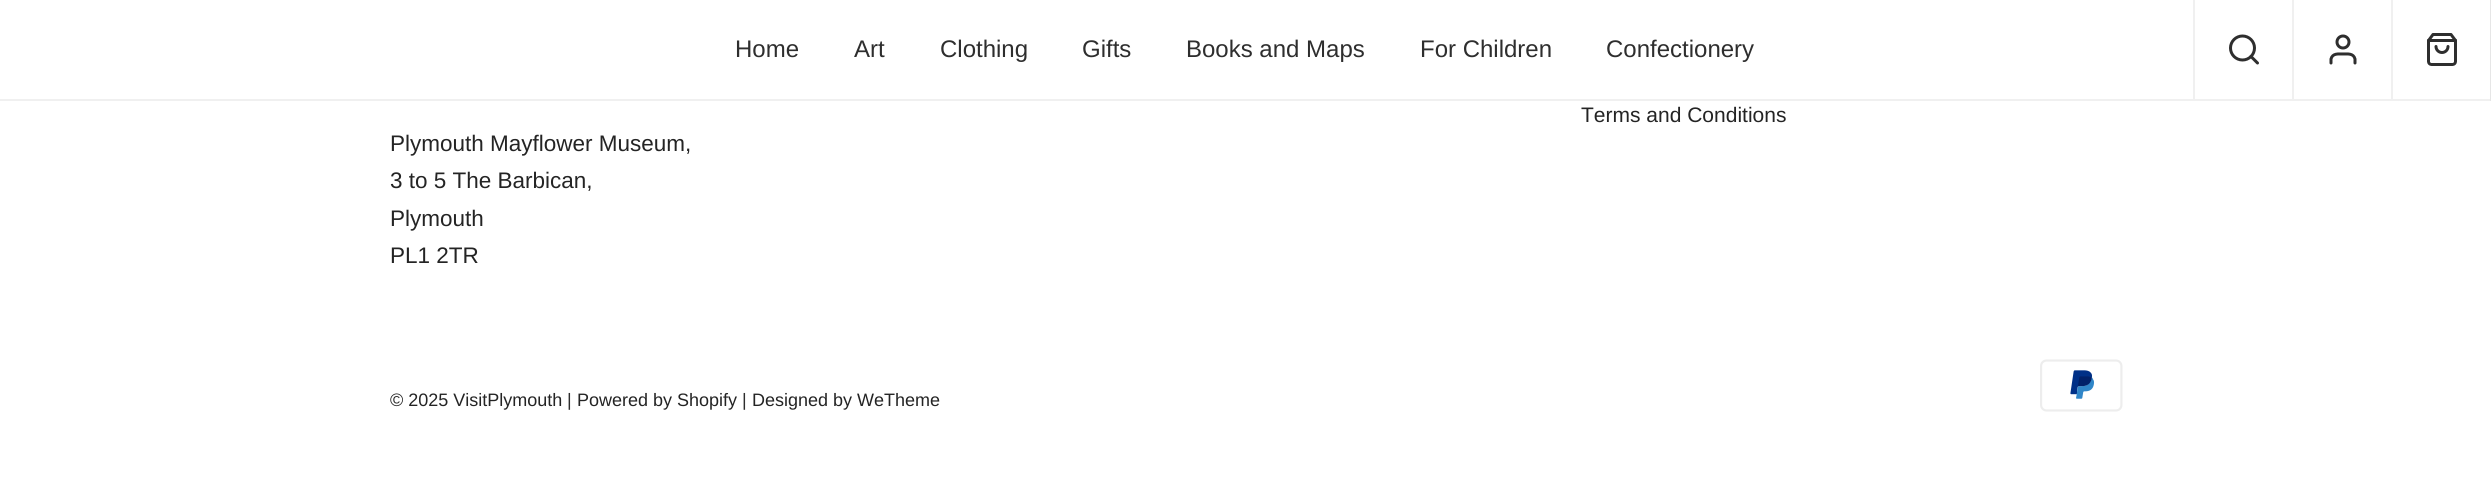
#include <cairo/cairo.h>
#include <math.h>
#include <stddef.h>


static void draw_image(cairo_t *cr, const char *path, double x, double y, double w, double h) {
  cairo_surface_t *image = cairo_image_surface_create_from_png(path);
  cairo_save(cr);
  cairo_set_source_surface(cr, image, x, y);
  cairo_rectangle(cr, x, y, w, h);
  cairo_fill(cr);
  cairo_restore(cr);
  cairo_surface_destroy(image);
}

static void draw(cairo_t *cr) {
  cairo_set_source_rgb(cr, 1, 1, 1);
  cairo_paint(cr);
  cairo_set_source_rgb(cr, 230 / 255.0, 230 / 255.0, 230 / 255.0);
  cairo_rectangle(cr, 2490, 0, 1, 101);
  cairo_fill(cr);
  cairo_set_source_rgb(cr, 240 / 255.0, 240 / 255.0, 240 / 255.0);
  cairo_rectangle(cr, 0, 99, 2490, 2);
  cairo_fill(cr);
  cairo_rectangle(cr, 2193, 0, 2, 99);
  cairo_fill(cr);
  cairo_arc(cr, 2242.5, 48, 12, 0, 2 * M_PI);
  cairo_set_source_rgb(cr, 46 / 255.0, 46 / 255.0, 46 / 255.0);
  cairo_set_line_width(cr, 3);
  cairo_stroke(cr);
  cairo_new_path(cr);
  cairo_move_to(cr, 2257.5, 63);
  cairo_line_to(cr, 2251, 56.5);
  cairo_set_line_cap(cr, CAIRO_LINE_CAP_ROUND);
  cairo_set_line_join(cr, CAIRO_LINE_JOIN_ROUND);
  cairo_stroke(cr);
  cairo_set_source_rgb(cr, 240 / 255.0, 240 / 255.0, 240 / 255.0);
  cairo_rectangle(cr, 2292, 0, 2, 99);
  cairo_fill(cr);
  cairo_arc(cr, 2343, 42, 6, 0, 2 * M_PI);
  cairo_set_source_rgb(cr, 46 / 255.0, 46 / 255.0, 46 / 255.0);
  cairo_set_line_cap(cr, CAIRO_LINE_CAP_BUTT);
  cairo_set_line_join(cr, CAIRO_LINE_JOIN_MITER);
  cairo_stroke(cr);
  cairo_new_path(cr);
  cairo_move_to(cr, 2355, 63);
  cairo_line_to(cr, 2355, 59);
  cairo_curve_to(cr, 2353.5, 53, 2347.5, 54, 2343, 54);
  cairo_curve_to(cr, 2338.5, 54, 2332.5, 53, 2331, 59);
  cairo_line_to(cr, 2331, 63);
  cairo_set_line_cap(cr, CAIRO_LINE_CAP_ROUND);
  cairo_set_line_join(cr, CAIRO_LINE_JOIN_ROUND);
  cairo_stroke(cr);
  cairo_set_source_rgb(cr, 240 / 255.0, 240 / 255.0, 240 / 255.0);
  cairo_rectangle(cr, 2391, 0, 2, 99);
  cairo_fill(cr);
  draw_image(cr, "images/1.png", 2427, 33, 30, 33);
  draw_image(cr, "images/2.png", 2040, 359, 83, 53);
  cairo_select_font_face(cr, "Liberation Sans", CAIRO_FONT_SLANT_NORMAL, CAIRO_FONT_WEIGHT_NORMAL);
  cairo_set_font_size(cr, 24);
  cairo_set_source_rgb(cr, 46 / 255.0, 46 / 255.0, 46 / 255.0);
  cairo_move_to(cr, 735, 57);
  cairo_show_text(cr, "Home");
  cairo_move_to(cr, 854, 57);
  cairo_show_text(cr, "Art");
  cairo_move_to(cr, 940, 57);
  cairo_show_text(cr, "Clothing");
  cairo_move_to(cr, 1082, 57);
  cairo_show_text(cr, "Gifts");
  cairo_move_to(cr, 1186, 57);
  cairo_show_text(cr, "Books and Maps");
  cairo_move_to(cr, 1420, 57);
  cairo_show_text(cr, "For Children");
  cairo_move_to(cr, 1606, 57);
  cairo_show_text(cr, "Confectionery");
  cairo_set_font_size(cr, 21);
  cairo_set_source_rgb(cr, 36 / 255.0, 36 / 255.0, 36 / 255.0);
  cairo_move_to(cr, 1581, 122);
  cairo_show_text(cr, "Terms and Conditions");
  cairo_set_font_size(cr, 22.5);
  cairo_move_to(cr, 390, 151);
  cairo_show_text(cr, "Plymouth Mayflower Museum,");
  cairo_move_to(cr, 390, 188);
  cairo_show_text(cr, "3 to 5 The Barbican,");
  cairo_move_to(cr, 390, 226);
  cairo_show_text(cr, "Plymouth");
  cairo_move_to(cr, 390, 263);
  cairo_show_text(cr, "PL1 2TR");
  cairo_set_font_size(cr, 18);
  cairo_move_to(cr, 390, 406);
  cairo_show_text(cr, "© 2025 VisitPlymouth");
  cairo_set_source_rgb(cr, 46 / 255.0, 46 / 255.0, 46 / 255.0);
  cairo_move_to(cr, 567, 406);
  cairo_show_text(cr, "|");
  cairo_set_source_rgb(cr, 36 / 255.0, 36 / 255.0, 36 / 255.0);
  cairo_move_to(cr, 577, 406);
  cairo_show_text(cr, "Powered by Shopify");
  cairo_set_source_rgb(cr, 46 / 255.0, 46 / 255.0, 46 / 255.0);
  cairo_move_to(cr, 742, 406);
  cairo_show_text(cr, "|");
  cairo_set_source_rgb(cr, 36 / 255.0, 36 / 255.0, 36 / 255.0);
  cairo_move_to(cr, 752, 406);
  cairo_show_text(cr, "Designed by WeTheme");
}

int main(void) {
  cairo_surface_t *surface = cairo_image_surface_create(CAIRO_FORMAT_RGB24, 2491, 500);
  cairo_t *cr = cairo_create(surface);
  cairo_font_options_t *options = cairo_font_options_create();
  cairo_font_options_set_hint_metrics(options, CAIRO_HINT_METRICS_OFF);
  cairo_font_options_set_hint_style(options, CAIRO_HINT_STYLE_NONE);
  cairo_set_font_options(cr, options);
  cairo_set_miter_limit(cr, 4);
  draw(cr);
  cairo_surface_write_to_png(surface, "out.png");
  cairo_font_options_destroy(options);
  cairo_destroy(cr);
  cairo_surface_destroy(surface);
  return 0;
}
